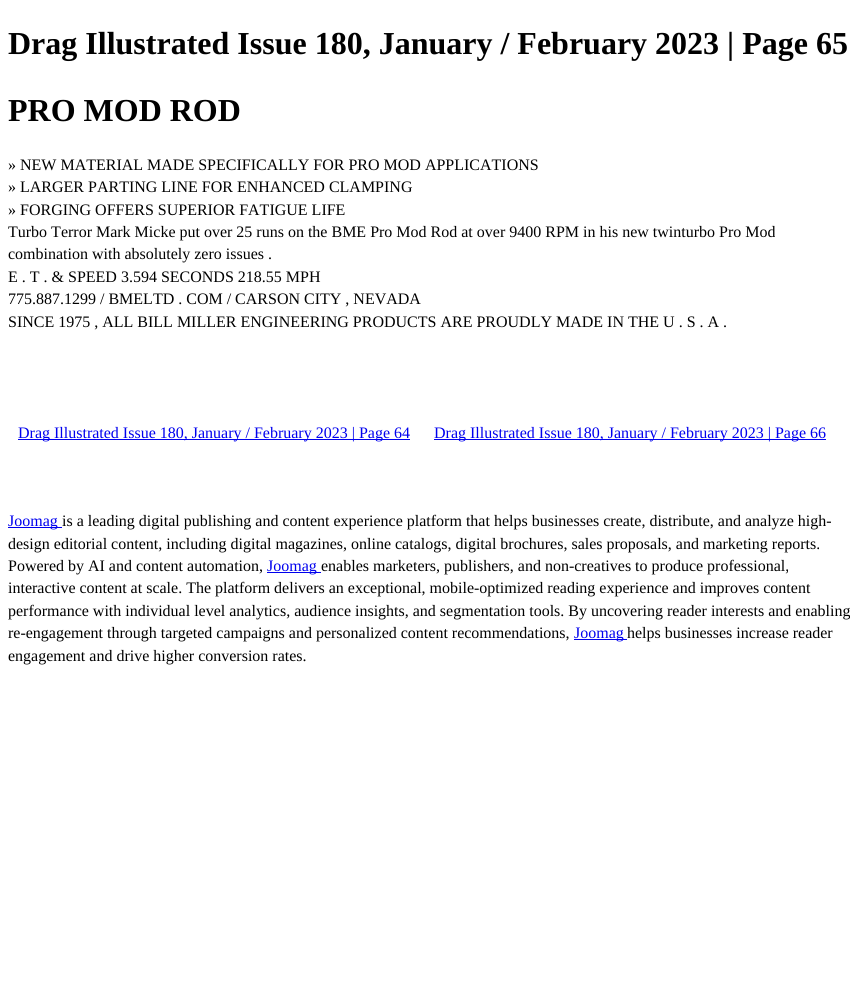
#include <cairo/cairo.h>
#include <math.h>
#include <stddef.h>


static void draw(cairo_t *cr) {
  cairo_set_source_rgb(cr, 1, 1, 1);
  cairo_paint(cr);
  cairo_set_source_rgb(cr, 0, 0, 238 / 255.0);
  cairo_rectangle(cr, 18, 439, 392, 1);
  cairo_fill(cr);
  cairo_rectangle(cr, 434, 439, 392, 1);
  cairo_fill(cr);
  cairo_rectangle(cr, 8, 527, 54, 1);
  cairo_fill(cr);
  cairo_rectangle(cr, 267, 572, 54, 1);
  cairo_fill(cr);
  cairo_rectangle(cr, 574, 639, 53, 1);
  cairo_fill(cr);
  cairo_select_font_face(cr, "Liberation Serif", CAIRO_FONT_SLANT_NORMAL, CAIRO_FONT_WEIGHT_BOLD);
  cairo_set_font_size(cr, 32);
  cairo_set_source_rgb(cr, 0, 0, 0);
  cairo_move_to(cr, 8, 54);
  cairo_show_text(cr, "Drag Illustrated Issue 180, January / February 2023 | Page 65");
  cairo_move_to(cr, 8, 121);
  cairo_show_text(cr, "PRO MOD ROD");
  cairo_select_font_face(cr, "Liberation Serif", CAIRO_FONT_SLANT_NORMAL, CAIRO_FONT_WEIGHT_NORMAL);
  cairo_set_font_size(cr, 16);
  cairo_move_to(cr, 8, 170);
  cairo_show_text(cr, "» NEW MATERIAL MADE SPECIFICALLY FOR PRO MOD APPLICATIONS");
  cairo_move_to(cr, 8, 192);
  cairo_show_text(cr, "» LARGER PARTING LINE FOR ENHANCED CLAMPING");
  cairo_move_to(cr, 8, 215);
  cairo_show_text(cr, "» FORGING OFFERS SUPERIOR FATIGUE LIFE");
  cairo_move_to(cr, 8, 237);
  cairo_show_text(cr, "Turbo Terror Mark Micke put over 25 runs on the BME Pro Mod Rod at over 9400 RPM in his new twinturbo Pro Mod");
  cairo_move_to(cr, 8, 259);
  cairo_show_text(cr, "combination with absolutely zero issues .");
  cairo_move_to(cr, 8, 282);
  cairo_show_text(cr, "E . T . & SPEED 3.594 SECONDS 218.55 MPH");
  cairo_move_to(cr, 8, 304);
  cairo_show_text(cr, "775.887.1299 / BMELTD . COM / CARSON CITY , NEVADA");
  cairo_move_to(cr, 8, 327);
  cairo_show_text(cr, "SINCE 1975 , ALL BILL MILLER ENGINEERING PRODUCTS ARE PROUDLY MADE IN THE U . S . A .");
  cairo_set_source_rgb(cr, 0, 0, 238 / 255.0);
  cairo_move_to(cr, 18, 438);
  cairo_show_text(cr, "Drag Illustrated Issue 180, January / February 2023 | Page 64");
  cairo_move_to(cr, 434, 438);
  cairo_show_text(cr, "Drag Illustrated Issue 180, January / February 2023 | Page 66");
  cairo_move_to(cr, 8, 526);
  cairo_show_text(cr, "Joomag");
  cairo_set_source_rgb(cr, 0, 0, 0);
  cairo_move_to(cr, 62, 526);
  cairo_show_text(cr, "is a leading digital publishing and content experience platform that helps businesses create, distribute, and analyze high-");
  cairo_move_to(cr, 8, 549);
  cairo_show_text(cr, "design editorial content, including digital magazines, online catalogs, digital brochures, sales proposals, and marketing reports.");
  cairo_move_to(cr, 8, 571);
  cairo_show_text(cr, "Powered by AI and content automation,");
  cairo_set_source_rgb(cr, 0, 0, 238 / 255.0);
  cairo_move_to(cr, 267, 571);
  cairo_show_text(cr, "Joomag");
  cairo_set_source_rgb(cr, 0, 0, 0);
  cairo_move_to(cr, 321, 571);
  cairo_show_text(cr, "enables marketers, publishers, and non-creatives to produce professional,");
  cairo_move_to(cr, 8, 593);
  cairo_show_text(cr, "interactive content at scale. The platform delivers an exceptional, mobile-optimized reading experience and improves content");
  cairo_move_to(cr, 8, 616);
  cairo_show_text(cr, "performance with individual level analytics, audience insights, and segmentation tools. By uncovering reader interests and enabling");
  cairo_move_to(cr, 8, 638);
  cairo_show_text(cr, "re-engagement through targeted campaigns and personalized content recommendations,");
  cairo_set_source_rgb(cr, 0, 0, 238 / 255.0);
  cairo_move_to(cr, 574, 638);
  cairo_show_text(cr, "Joomag");
  cairo_set_source_rgb(cr, 0, 0, 0);
  cairo_move_to(cr, 627, 638);
  cairo_show_text(cr, "helps businesses increase reader");
  cairo_move_to(cr, 8, 661);
  cairo_show_text(cr, "engagement and drive higher conversion rates.");
}

int main(void) {
  cairo_surface_t *surface = cairo_image_surface_create(CAIRO_FORMAT_RGB24, 861, 998);
  cairo_t *cr = cairo_create(surface);
  cairo_font_options_t *options = cairo_font_options_create();
  cairo_font_options_set_hint_metrics(options, CAIRO_HINT_METRICS_OFF);
  cairo_font_options_set_hint_style(options, CAIRO_HINT_STYLE_NONE);
  cairo_set_font_options(cr, options);
  cairo_set_miter_limit(cr, 4);
  draw(cr);
  cairo_surface_write_to_png(surface, "out.png");
  cairo_font_options_destroy(options);
  cairo_destroy(cr);
  cairo_surface_destroy(surface);
  return 0;
}
